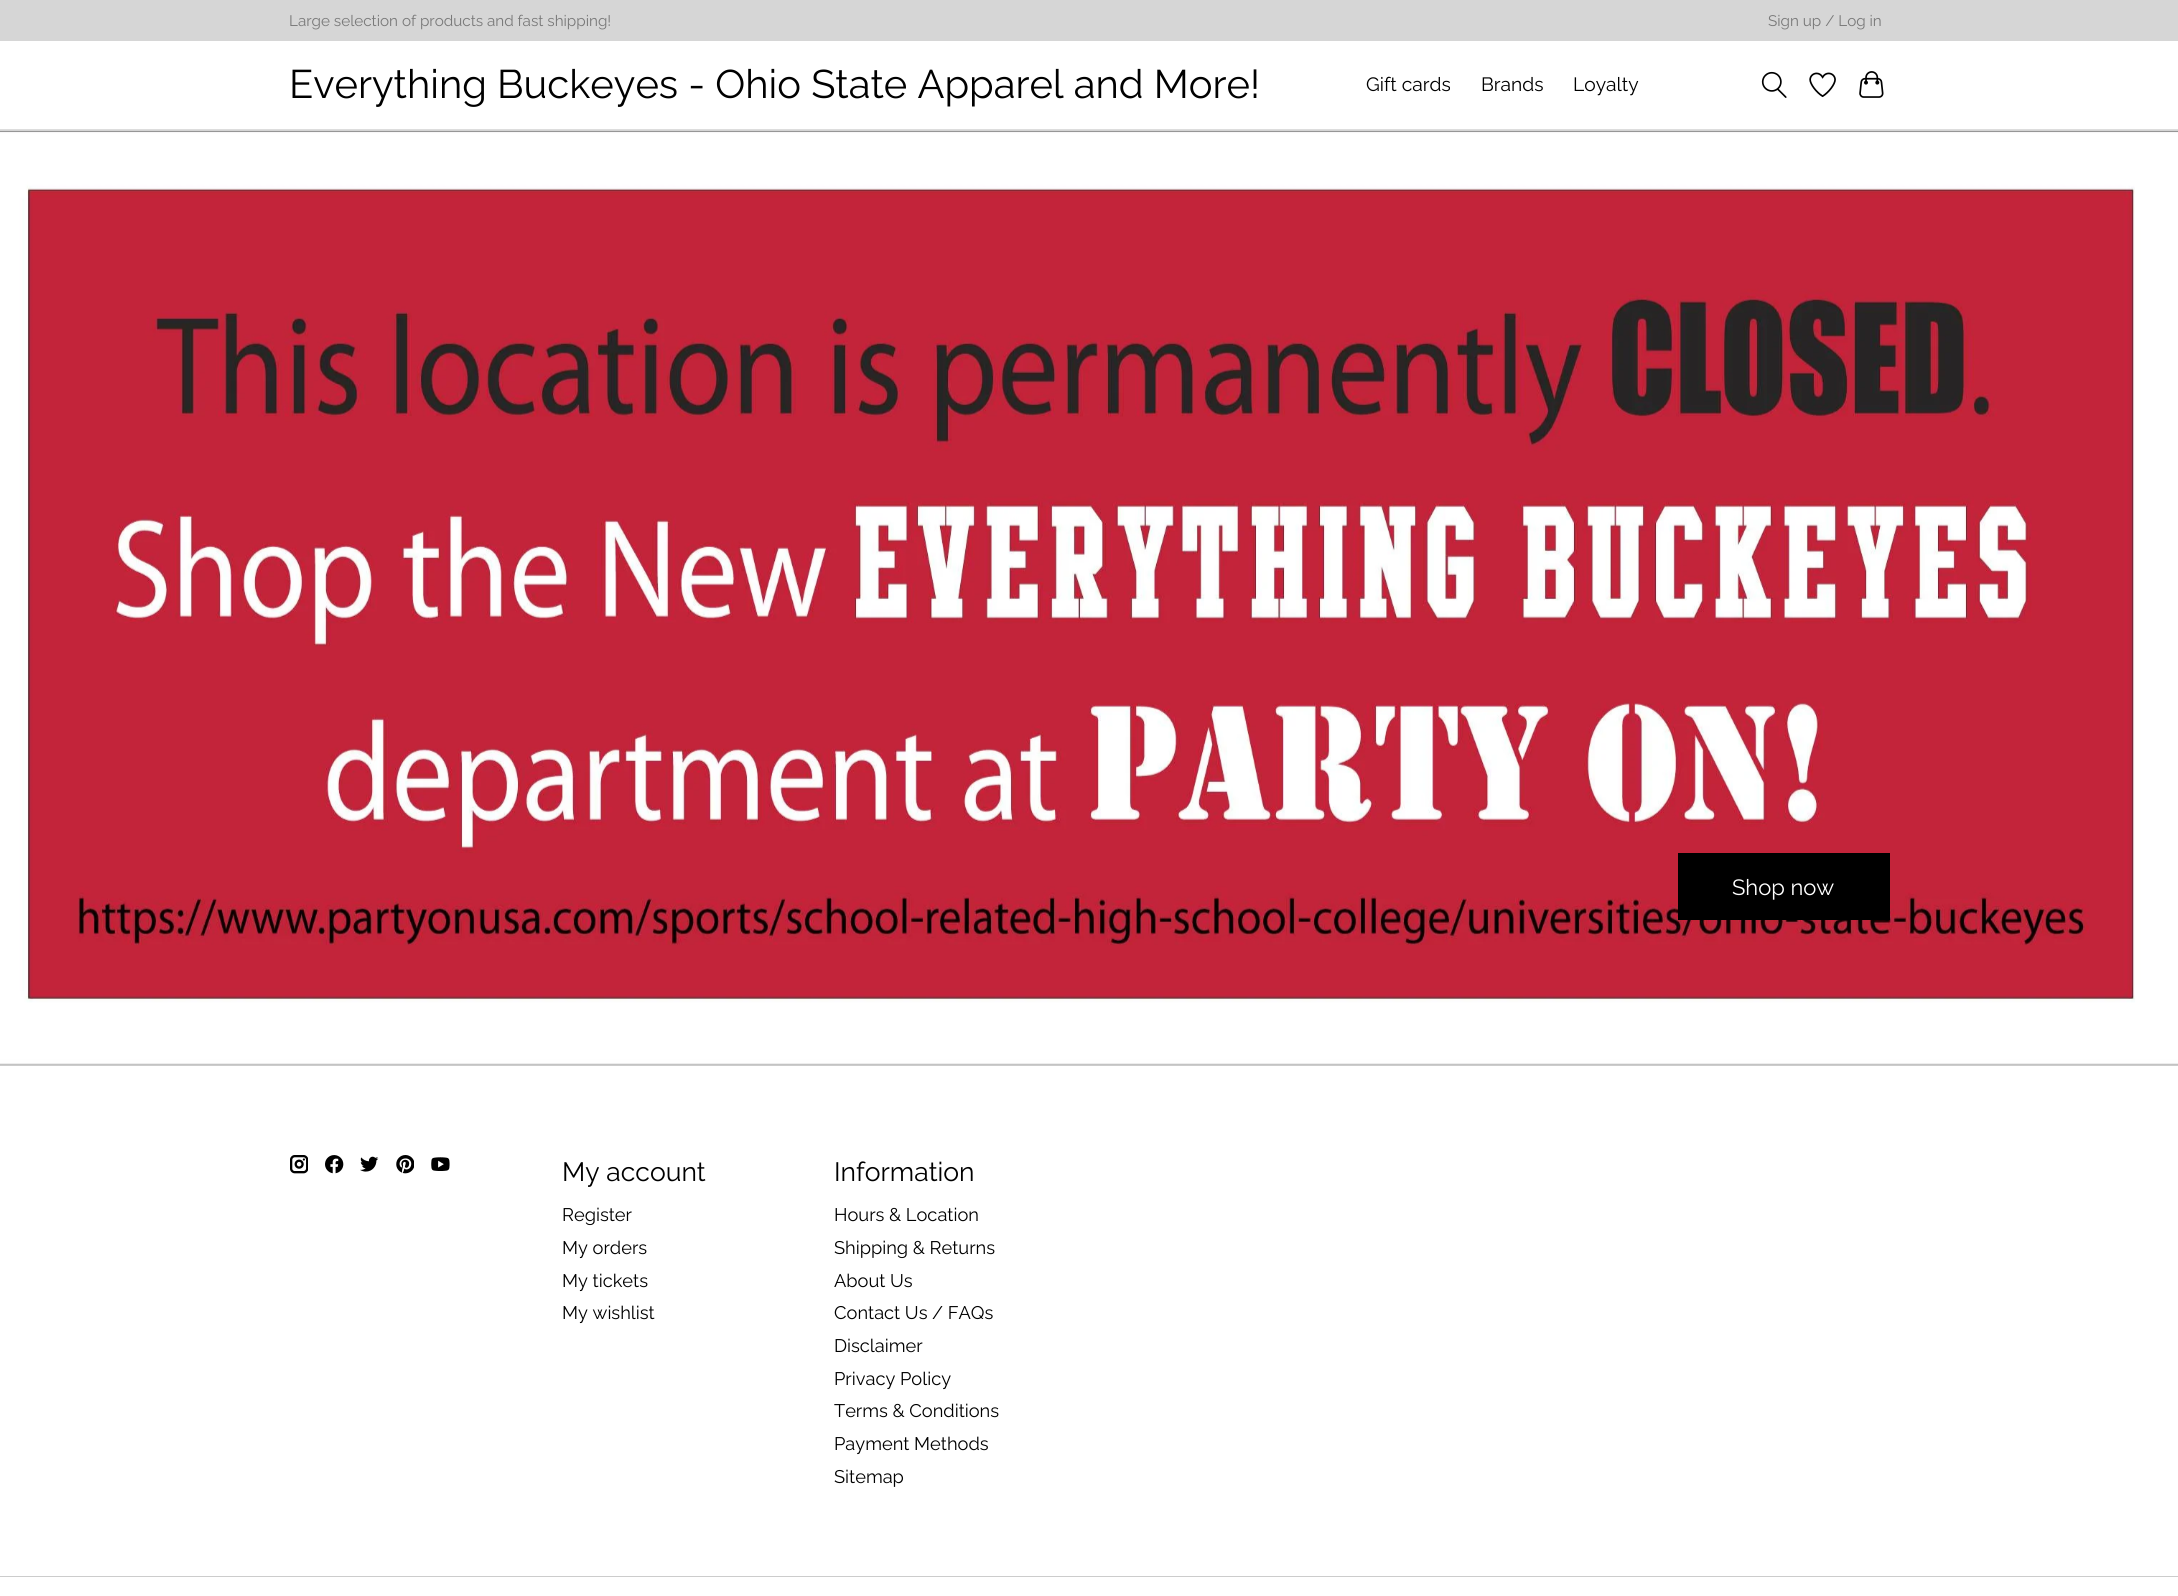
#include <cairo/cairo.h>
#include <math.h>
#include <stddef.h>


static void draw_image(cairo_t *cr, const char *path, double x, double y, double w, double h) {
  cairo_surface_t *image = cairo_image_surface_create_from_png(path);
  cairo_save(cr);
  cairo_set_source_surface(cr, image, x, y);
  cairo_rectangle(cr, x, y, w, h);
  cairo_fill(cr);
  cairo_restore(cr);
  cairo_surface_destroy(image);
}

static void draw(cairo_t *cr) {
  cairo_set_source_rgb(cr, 1, 1, 1);
  cairo_paint(cr);
  cairo_set_source_rgb(cr, 214 / 255.0, 214 / 255.0, 214 / 255.0);
  cairo_rectangle(cr, 0, 0, 2178, 41);
  cairo_fill(cr);
  draw_image(cr, "images/1.png", 1761, 71, 26, 27);
  draw_image(cr, "images/2.png", 1809, 72, 27, 26);
  draw_image(cr, "images/3.png", 1859, 71, 25, 27);
  draw_image(cr, "images/4.png", 0, 129, 2178, 936);
  cairo_set_source_rgb(cr, 0, 0, 0);
  cairo_rectangle(cr, 1678, 853, 212, 67);
  cairo_fill(cr);
  cairo_set_source_rgb(cr, 204 / 255.0, 204 / 255.0, 204 / 255.0);
  cairo_rectangle(cr, 0, 1065, 2178, 1);
  cairo_fill(cr);
  draw_image(cr, "images/5.png", 290, 1155, 18, 19);
  draw_image(cr, "images/6.png", 325, 1155, 19, 19);
  draw_image(cr, "images/7.png", 360, 1156, 19, 16);
  draw_image(cr, "images/8.png", 396, 1155, 18, 19);
  draw_image(cr, "images/9.png", 431, 1157, 19, 14);
  cairo_rectangle(cr, 0, 1576, 2178, 1);
  cairo_fill(cr);
  cairo_select_font_face(cr, "Raleway", CAIRO_FONT_SLANT_NORMAL, CAIRO_FONT_WEIGHT_NORMAL);
  cairo_set_font_size(cr, 15.25);
  cairo_set_source_rgb(cr, 121 / 255.0, 121 / 255.0, 121 / 255.0);
  cairo_move_to(cr, 289, 26);
  cairo_show_text(cr, "Large selection of products and fast shipping!");
  cairo_move_to(cr, 1768, 26);
  cairo_show_text(cr, "Sign up / Log in");
  cairo_set_font_size(cr, 39.9);
  cairo_set_source_rgb(cr, 0, 0, 0);
  cairo_move_to(cr, 289, 98);
  cairo_show_text(cr, "Everything Buckeyes - Ohio State Apparel and More!");
  cairo_set_font_size(cr, 19.25);
  cairo_move_to(cr, 1366, 91);
  cairo_show_text(cr, "Gift cards");
  cairo_move_to(cr, 1481, 91);
  cairo_show_text(cr, "Brands");
  cairo_move_to(cr, 1573, 91);
  cairo_show_text(cr, "Loyalty");
  cairo_set_font_size(cr, 22);
  cairo_set_source_rgb(cr, 1, 1, 1);
  cairo_move_to(cr, 1732, 895);
  cairo_show_text(cr, "Shop now");
  cairo_set_font_size(cr, 26.5);
  cairo_set_source_rgb(cr, 0, 0, 0);
  cairo_move_to(cr, 562, 1181);
  cairo_show_text(cr, "My account");
  cairo_set_font_size(cr, 18.25);
  cairo_move_to(cr, 562, 1221);
  cairo_show_text(cr, "Register");
  cairo_move_to(cr, 562, 1254);
  cairo_show_text(cr, "My orders");
  cairo_move_to(cr, 562, 1287);
  cairo_show_text(cr, "My tickets");
  cairo_move_to(cr, 562, 1319);
  cairo_show_text(cr, "My wishlist");
  cairo_set_font_size(cr, 26.5);
  cairo_move_to(cr, 834, 1181);
  cairo_show_text(cr, "Information");
  cairo_set_font_size(cr, 18.25);
  cairo_move_to(cr, 834, 1221);
  cairo_show_text(cr, "Hours & Location");
  cairo_move_to(cr, 834, 1254);
  cairo_show_text(cr, "Shipping & Returns");
  cairo_move_to(cr, 834, 1287);
  cairo_show_text(cr, "About Us");
  cairo_move_to(cr, 834, 1319);
  cairo_show_text(cr, "Contact Us / FAQs");
  cairo_move_to(cr, 834, 1352);
  cairo_show_text(cr, "Disclaimer");
  cairo_move_to(cr, 834, 1385);
  cairo_show_text(cr, "Privacy Policy");
  cairo_move_to(cr, 834, 1417);
  cairo_show_text(cr, "Terms & Conditions");
  cairo_move_to(cr, 834, 1450);
  cairo_show_text(cr, "Payment Methods");
  cairo_move_to(cr, 834, 1483);
  cairo_show_text(cr, "Sitemap");
}

int main(void) {
  cairo_surface_t *surface = cairo_image_surface_create(CAIRO_FORMAT_RGB24, 2178, 1596);
  cairo_t *cr = cairo_create(surface);
  cairo_font_options_t *options = cairo_font_options_create();
  cairo_font_options_set_hint_metrics(options, CAIRO_HINT_METRICS_OFF);
  cairo_font_options_set_hint_style(options, CAIRO_HINT_STYLE_NONE);
  cairo_set_font_options(cr, options);
  cairo_set_miter_limit(cr, 4);
  draw(cr);
  cairo_surface_write_to_png(surface, "out.png");
  cairo_font_options_destroy(options);
  cairo_destroy(cr);
  cairo_surface_destroy(surface);
  return 0;
}
